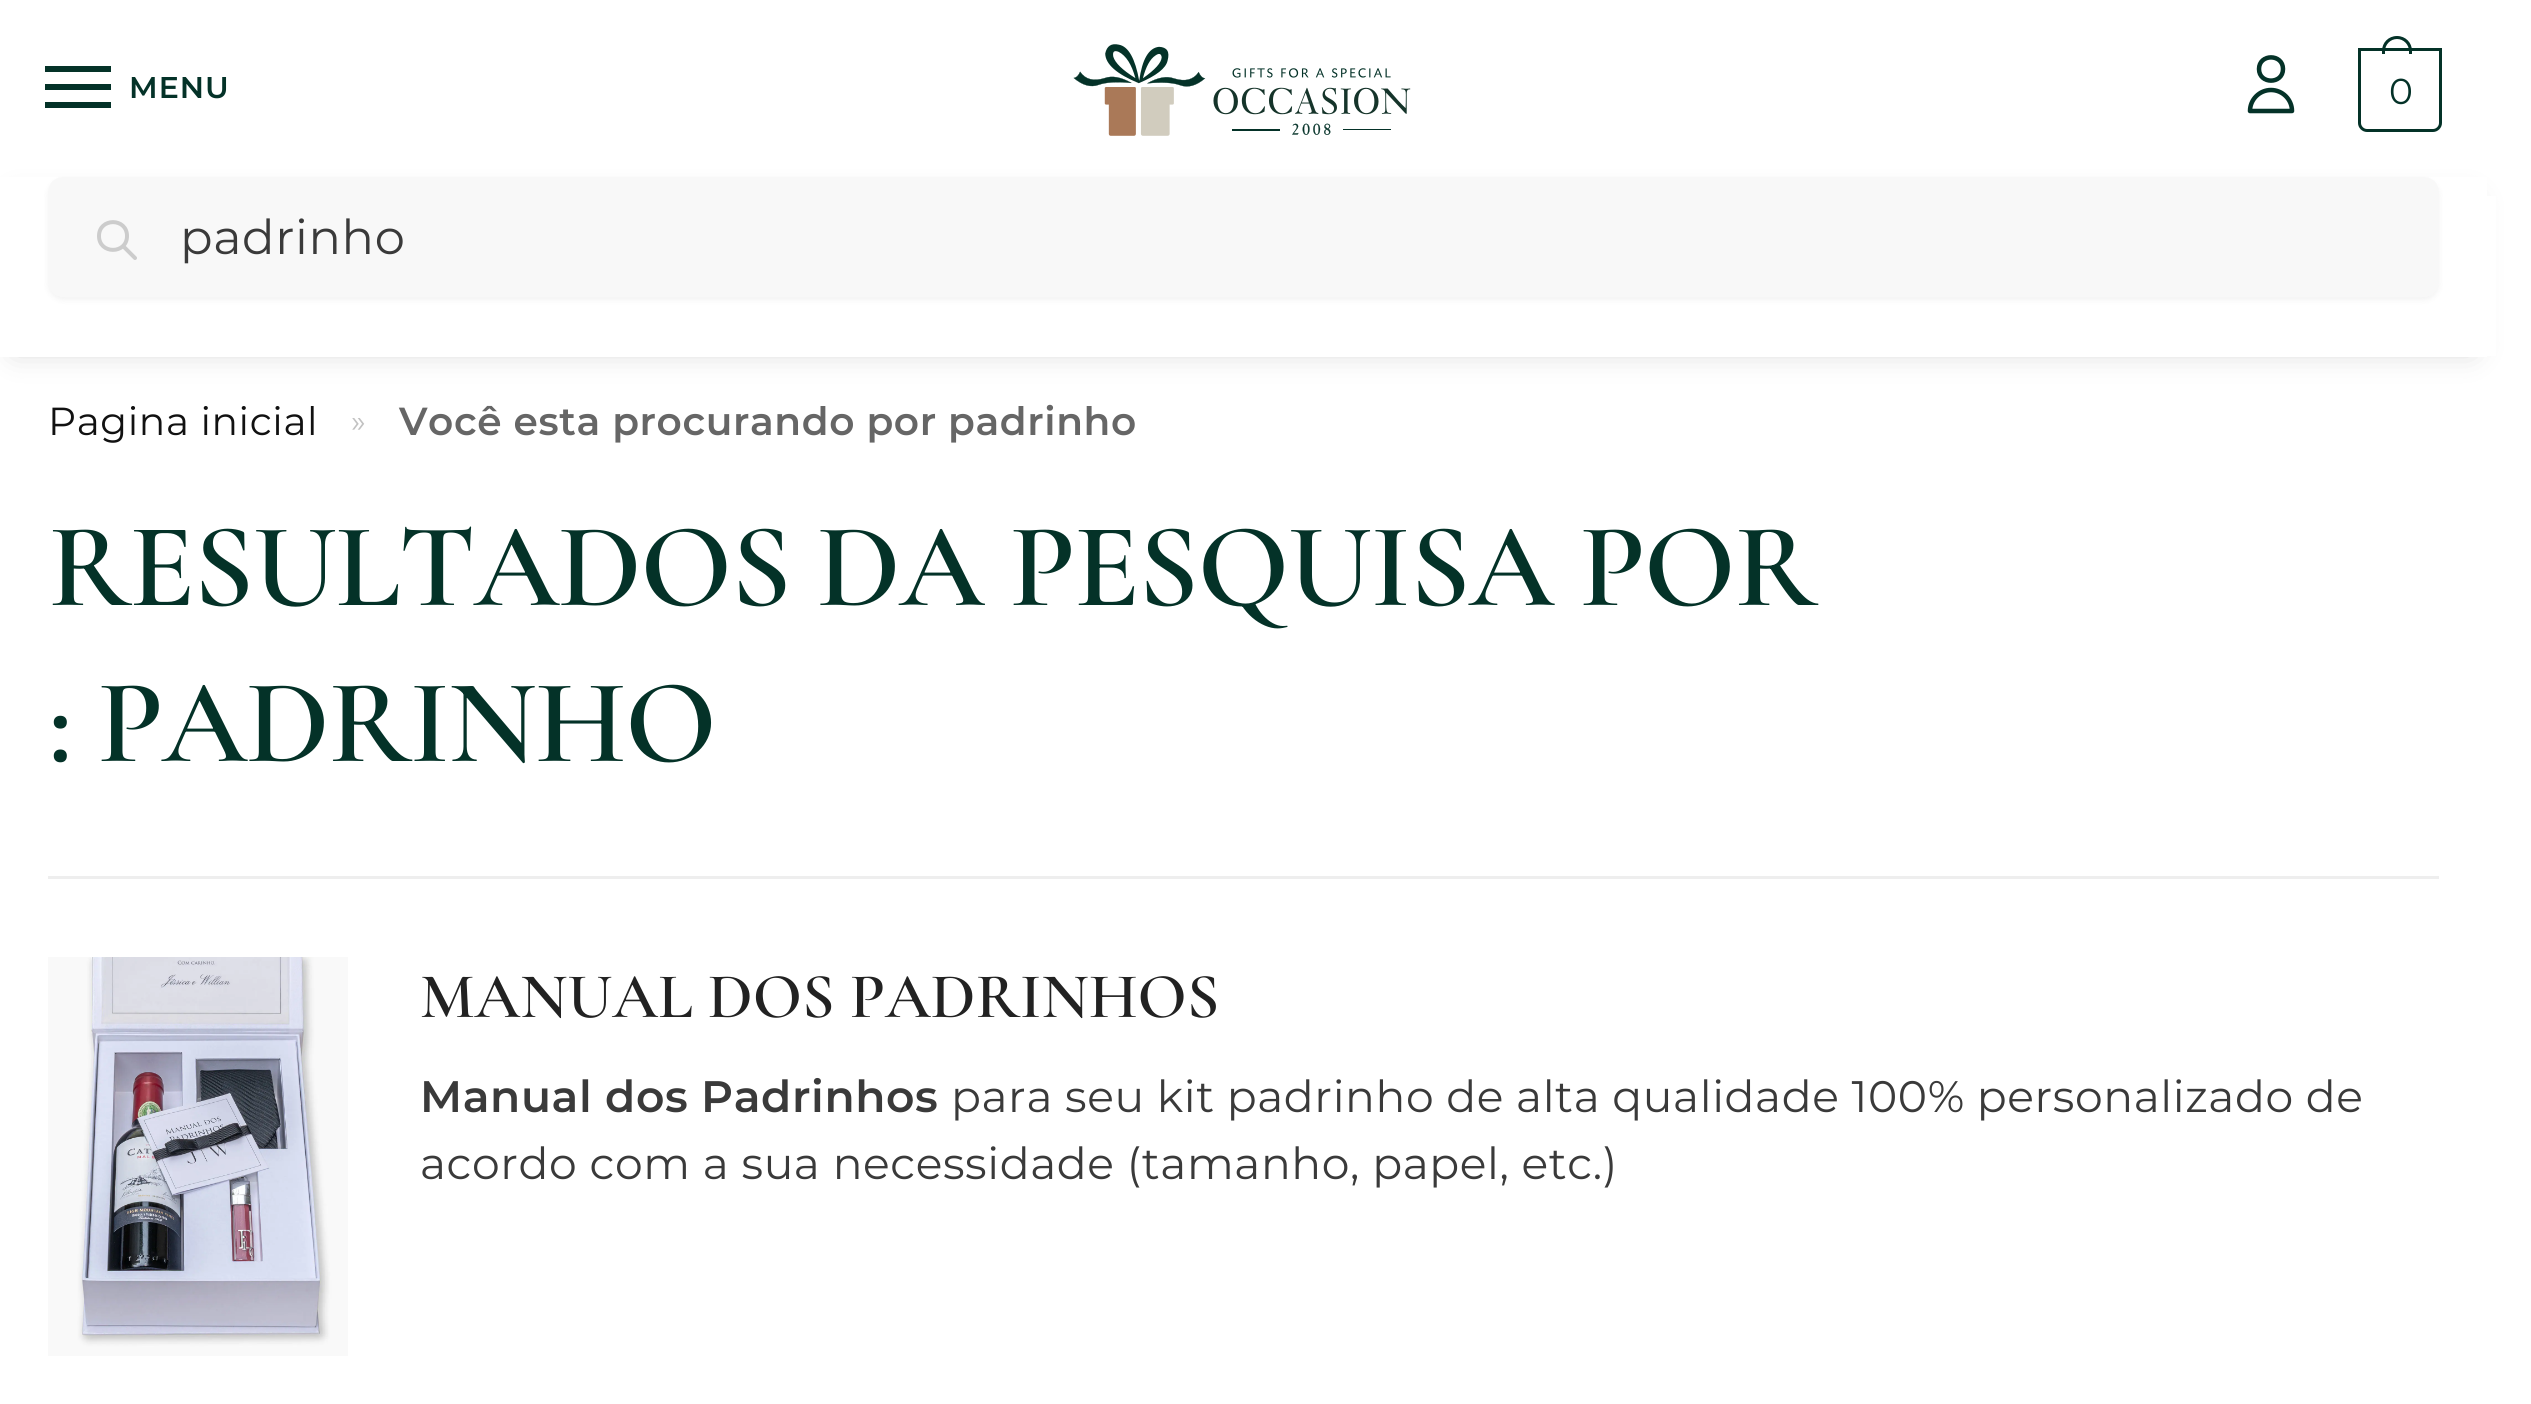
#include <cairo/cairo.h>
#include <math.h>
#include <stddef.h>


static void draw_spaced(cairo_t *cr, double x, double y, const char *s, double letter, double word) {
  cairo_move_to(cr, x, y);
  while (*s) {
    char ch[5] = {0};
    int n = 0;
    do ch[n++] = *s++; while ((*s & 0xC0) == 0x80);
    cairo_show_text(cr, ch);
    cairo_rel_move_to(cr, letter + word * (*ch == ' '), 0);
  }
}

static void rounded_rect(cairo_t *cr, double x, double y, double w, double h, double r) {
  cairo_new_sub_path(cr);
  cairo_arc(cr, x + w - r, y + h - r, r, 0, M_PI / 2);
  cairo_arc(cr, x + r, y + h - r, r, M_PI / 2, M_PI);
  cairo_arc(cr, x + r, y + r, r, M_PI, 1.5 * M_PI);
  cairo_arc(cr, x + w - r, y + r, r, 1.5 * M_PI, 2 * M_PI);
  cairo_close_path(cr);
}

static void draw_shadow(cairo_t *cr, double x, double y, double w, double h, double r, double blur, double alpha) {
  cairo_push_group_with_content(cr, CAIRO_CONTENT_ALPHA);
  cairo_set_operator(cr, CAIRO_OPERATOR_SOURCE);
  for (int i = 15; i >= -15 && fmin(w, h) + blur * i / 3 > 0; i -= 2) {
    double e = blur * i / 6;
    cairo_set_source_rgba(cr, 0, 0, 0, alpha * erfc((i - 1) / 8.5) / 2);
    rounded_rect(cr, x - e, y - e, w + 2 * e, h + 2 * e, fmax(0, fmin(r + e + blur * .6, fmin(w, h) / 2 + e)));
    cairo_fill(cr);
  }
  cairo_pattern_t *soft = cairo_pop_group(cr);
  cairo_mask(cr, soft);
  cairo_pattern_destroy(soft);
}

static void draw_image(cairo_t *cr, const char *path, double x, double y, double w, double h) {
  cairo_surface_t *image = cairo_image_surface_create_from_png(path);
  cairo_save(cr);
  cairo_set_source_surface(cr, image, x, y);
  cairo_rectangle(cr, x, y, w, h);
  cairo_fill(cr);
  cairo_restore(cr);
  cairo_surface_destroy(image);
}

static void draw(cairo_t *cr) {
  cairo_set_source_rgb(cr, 1, 1, 1);
  cairo_paint(cr);
  cairo_set_source_rgb(cr, 4 / 255.0, 50 / 255.0, 40 / 255.0);
  cairo_rectangle(cr, 45, 66, 66, 6);
  cairo_fill(cr);
  cairo_rectangle(cr, 45, 84, 66, 6);
  cairo_fill(cr);
  cairo_rectangle(cr, 45, 102, 66, 6);
  cairo_fill(cr);
  draw_image(cr, "images/1.png", 1073, 44, 338, 92);
  cairo_new_path(cr);
  cairo_move_to(cr, 2283, 69);
  cairo_curve_to(cr, 2283, 84.5, 2259, 84.5, 2259, 69);
  cairo_curve_to(cr, 2259, 53.5, 2283, 53.5, 2283, 69);
  cairo_close_path(cr);
  cairo_move_to(cr, 2271, 90);
  cairo_curve_to(cr, 2259.5, 90, 2250, 99.5, 2250, 111);
  cairo_line_to(cr, 2292, 111);
  cairo_curve_to(cr, 2292, 99.5, 2282.5, 90, 2271, 90);
  cairo_close_path(cr);
  cairo_set_line_width(cr, 4.5);
  cairo_set_line_cap(cr, CAIRO_LINE_CAP_ROUND);
  cairo_set_line_join(cr, CAIRO_LINE_JOIN_ROUND);
  cairo_stroke(cr);
  cairo_new_path(cr);
  cairo_move_to(cr, 2359.5, 49.5);
  cairo_line_to(cr, 2440.5, 49.5);
  cairo_line_to(cr, 2440.5, 123);
  cairo_curve_to(cr, 2440.5, 127, 2437, 130.5, 2433, 130.5);
  cairo_line_to(cr, 2367, 130.5);
  cairo_curve_to(cr, 2363, 130.5, 2359.5, 127, 2359.5, 123);
  cairo_close_path(cr);
  cairo_set_line_width(cr, 3);
  cairo_set_line_cap(cr, CAIRO_LINE_CAP_BUTT);
  cairo_set_line_join(cr, CAIRO_LINE_JOIN_MITER);
  cairo_stroke(cr);
  cairo_set_fill_rule(cr, CAIRO_FILL_RULE_EVEN_ODD);
  cairo_new_path(cr);
  cairo_move_to(cr, 2397, 36);
  cairo_curve_to(cr, 2405.5, 36, 2412, 42.5, 2412, 51);
  cairo_line_to(cr, 2412, 54);
  cairo_line_to(cr, 2382, 54);
  cairo_line_to(cr, 2382, 51);
  cairo_curve_to(cr, 2382, 42.5, 2388.5, 36, 2397, 36);
  cairo_close_path(cr);
  cairo_move_to(cr, 2397, 39);
  cairo_curve_to(cr, 2403.5, 39, 2409, 44.5, 2409, 51);
  cairo_line_to(cr, 2409, 54);
  cairo_line_to(cr, 2385, 54);
  cairo_line_to(cr, 2385, 51);
  cairo_curve_to(cr, 2385, 44.5, 2390.5, 39, 2397, 39);
  cairo_close_path(cr);
  cairo_fill(cr);
  cairo_set_source_rgb(cr, 0, 0, 0);
  draw_shadow(cr, 15, 201, 2457, 150, 0, 15, 0.18);
  cairo_set_source_rgb(cr, 1, 1, 1);
  cairo_rectangle(cr, 0, 177, 2487, 180);
  cairo_fill(cr);
  cairo_set_source_rgb(cr, 0, 0, 0);
  draw_shadow(cr, 48, 180, 2391, 120, 15, 3, 0.05);
  cairo_set_source_rgb(cr, 248 / 255.0, 248 / 255.0, 248 / 255.0);
  rounded_rect(cr, 48, 177, 2391, 120, 15);
  cairo_fill(cr);
  cairo_new_path(cr);
  cairo_move_to(cr, 135, 258);
  cairo_line_to(cr, 123, 246);
  cairo_move_to(cr, 127, 236);
  cairo_curve_to(cr, 127, 254.5, 99, 254.5, 99, 236);
  cairo_curve_to(cr, 99, 217.5, 127, 217.5, 127, 236);
  cairo_close_path(cr);
  cairo_set_source_rgb(cr, 204 / 255.0, 204 / 255.0, 204 / 255.0);
  cairo_set_line_width(cr, 4);
  cairo_set_line_cap(cr, CAIRO_LINE_CAP_ROUND);
  cairo_set_line_join(cr, CAIRO_LINE_JOIN_ROUND);
  cairo_stroke(cr);
  cairo_set_source_rgb(cr, 1, 1, 1);
  cairo_rectangle(cr, 2487, 196, 9, 160);
  cairo_fill(cr);
  cairo_set_source_rgb(cr, 238 / 255.0, 238 / 255.0, 238 / 255.0);
  cairo_rectangle(cr, 48, 876, 2391, 3);
  cairo_fill(cr);
  draw_image(cr, "images/2.png", 48, 957, 300, 399);
  cairo_select_font_face(cr, "Montserrat SemiBold", CAIRO_FONT_SLANT_NORMAL, CAIRO_FONT_WEIGHT_NORMAL);
  cairo_set_font_size(cr, 30);
  cairo_set_source_rgb(cr, 4 / 255.0, 50 / 255.0, 40 / 255.0);
  draw_spaced(cr, 129, 98, "MENU", 1, 0);
  cairo_select_font_face(cr, "Montserrat", CAIRO_FONT_SLANT_NORMAL, CAIRO_FONT_WEIGHT_NORMAL);
  cairo_set_font_size(cr, 36);
  draw_spaced(cr, 2389, 104, "0", -2, 0);
  cairo_set_font_size(cr, 48);
  cairo_set_source_rgb(cr, 58 / 255.0, 58 / 255.0, 58 / 255.0);
  draw_spaced(cr, 180, 254, "padrinho", 0.6, 0);
  cairo_set_font_size(cr, 39.1);
  cairo_set_source_rgb(cr, 17 / 255.0, 17 / 255.0, 17 / 255.0);
  draw_spaced(cr, 48, 435, "Pagina inicial", 0.6, 0);
  cairo_set_font_size(cr, 31);
  cairo_set_source_rgb(cr, 194 / 255.0, 194 / 255.0, 194 / 255.0);
  draw_spaced(cr, 351, 432, "»", 0.6, 0);
  cairo_select_font_face(cr, "Montserrat SemiBold", CAIRO_FONT_SLANT_NORMAL, CAIRO_FONT_WEIGHT_NORMAL);
  cairo_set_font_size(cr, 39.1);
  cairo_set_source_rgb(cr, 102 / 255.0, 102 / 255.0, 102 / 255.0);
  draw_spaced(cr, 399, 435, "Você esta procurando por padrinho", 0.6, 0);
  cairo_select_font_face(cr, "Cormorant Garamond SemiBold", CAIRO_FONT_SLANT_NORMAL, CAIRO_FONT_WEIGHT_NORMAL);
  cairo_set_font_size(cr, 120);
  cairo_set_source_rgb(cr, 4 / 255.0, 50 / 255.0, 40 / 255.0);
  draw_spaced(cr, 48, 605, "RESULTADOS DA PESQUISA POR", -1.5, 0);
  draw_spaced(cr, 48, 761, ": PADRINHO", -1.5, 0);
  cairo_set_font_size(cr, 64.25);
  cairo_set_source_rgb(cr, 34 / 255.0, 34 / 255.0, 34 / 255.0);
  cairo_move_to(cr, 420, 1017);
  cairo_show_text(cr, "MANUAL DOS PADRINHOS");
  cairo_select_font_face(cr, "Montserrat SemiBold", CAIRO_FONT_SLANT_NORMAL, CAIRO_FONT_WEIGHT_NORMAL);
  cairo_set_font_size(cr, 44.1);
  cairo_set_source_rgb(cr, 58 / 255.0, 58 / 255.0, 58 / 255.0);
  draw_spaced(cr, 420, 1112, "Manual dos Padrinhos", 0.6, 0);
  cairo_select_font_face(cr, "Montserrat", CAIRO_FONT_SLANT_NORMAL, CAIRO_FONT_WEIGHT_NORMAL);
  draw_spaced(cr, 951, 1112, "para seu kit padrinho de alta qualidade 100% personalizado de", 0.6, -0.1);
  draw_spaced(cr, 420, 1179, "acordo com a sua necessidade (tamanho, papel, etc.)", 0.6, 0);
}

int main(void) {
  cairo_surface_t *surface = cairo_image_surface_create(CAIRO_FORMAT_RGB24, 2531, 1404);
  cairo_t *cr = cairo_create(surface);
  cairo_font_options_t *options = cairo_font_options_create();
  cairo_font_options_set_hint_metrics(options, CAIRO_HINT_METRICS_OFF);
  cairo_font_options_set_hint_style(options, CAIRO_HINT_STYLE_NONE);
  cairo_set_font_options(cr, options);
  cairo_set_miter_limit(cr, 4);
  draw(cr);
  cairo_surface_write_to_png(surface, "out.png");
  cairo_font_options_destroy(options);
  cairo_destroy(cr);
  cairo_surface_destroy(surface);
  return 0;
}
